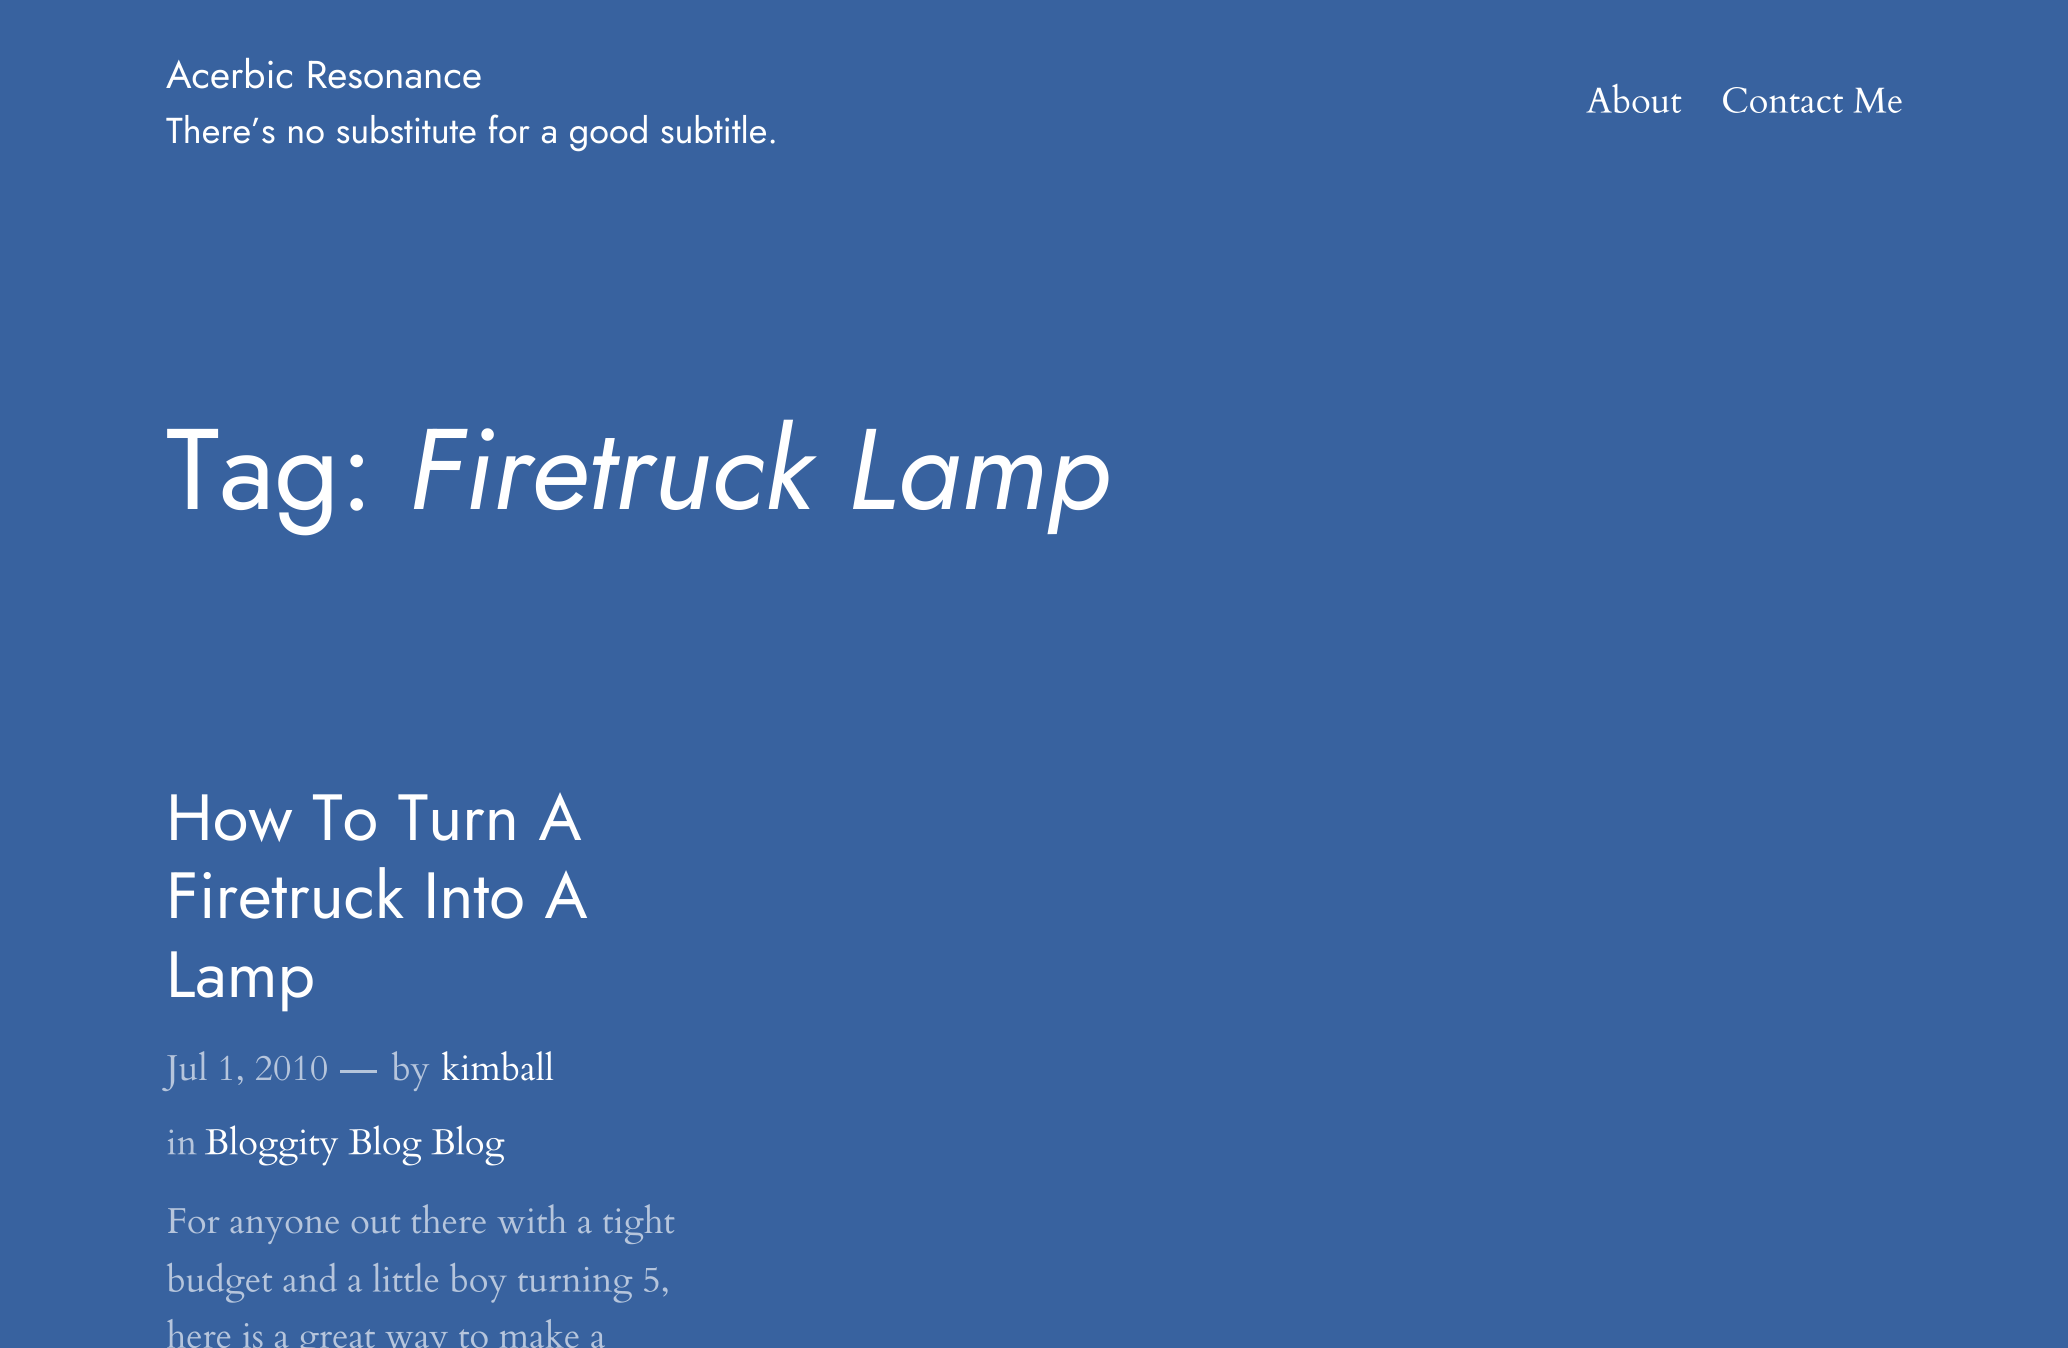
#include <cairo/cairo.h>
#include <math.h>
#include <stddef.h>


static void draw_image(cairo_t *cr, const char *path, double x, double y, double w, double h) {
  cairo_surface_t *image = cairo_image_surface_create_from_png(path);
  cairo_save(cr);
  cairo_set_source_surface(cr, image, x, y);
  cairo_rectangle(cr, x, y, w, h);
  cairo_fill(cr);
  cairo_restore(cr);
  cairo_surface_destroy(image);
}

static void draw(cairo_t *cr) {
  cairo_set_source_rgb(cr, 56 / 255.0, 98 / 255.0, 159 / 255.0);
  cairo_paint(cr);
  draw_image(cr, "images/1.png", 1586, 83, 96, 30);
  draw_image(cr, "images/2.png", 1723, 87, 179, 26);
  draw_image(cr, "images/3.png", 162, 1051, 165, 41);
  cairo_set_source_rgb(cr, 181 / 255.0, 197 / 255.0, 219 / 255.0);
  cairo_rectangle(cr, 340, 1070, 37, 3);
  cairo_fill(cr);
  draw_image(cr, "images/4.png", 391, 1051, 39, 41);
  draw_image(cr, "images/5.png", 441, 1051, 113, 30);
  draw_image(cr, "images/6.png", 167, 1129, 30, 26);
  draw_image(cr, "images/7.png", 204, 1125, 301, 41);
  draw_image(cr, "images/8.png", 168, 1204, 507, 41);
  draw_image(cr, "images/9.png", 166, 1262, 502, 41);
  draw_image(cr, "images/10.png", 167, 1318, 438, 30);
  cairo_select_font_face(cr, "Jost", CAIRO_FONT_SLANT_NORMAL, CAIRO_FONT_WEIGHT_NORMAL);
  cairo_set_font_size(cr, 38.75);
  cairo_set_source_rgb(cr, 1, 1, 1);
  cairo_move_to(cr, 166, 88);
  cairo_show_text(cr, "Acerbic Resonance");
  cairo_set_font_size(cr, 36);
  cairo_move_to(cr, 166, 143);
  cairo_show_text(cr, "There’s no substitute for a good subtitle.");
  cairo_set_font_size(cr, 114.5);
  cairo_move_to(cr, 166, 509);
  cairo_show_text(cr, "Tag:");
  cairo_select_font_face(cr, "Jost", CAIRO_FONT_SLANT_ITALIC, CAIRO_FONT_WEIGHT_NORMAL);
  cairo_move_to(cr, 408, 509);
  cairo_show_text(cr, "Firetruck Lamp");
  cairo_select_font_face(cr, "Jost", CAIRO_FONT_SLANT_NORMAL, CAIRO_FONT_WEIGHT_NORMAL);
  cairo_set_font_size(cr, 65.25);
  cairo_move_to(cr, 166, 840);
  cairo_show_text(cr, "How To Turn A");
  cairo_move_to(cr, 166, 918);
  cairo_show_text(cr, "Firetruck Into A");
  cairo_move_to(cr, 166, 997);
  cairo_show_text(cr, "Lamp");
}

int main(void) {
  cairo_surface_t *surface = cairo_image_surface_create(CAIRO_FORMAT_RGB24, 2068, 1348);
  cairo_t *cr = cairo_create(surface);
  cairo_font_options_t *options = cairo_font_options_create();
  cairo_font_options_set_hint_metrics(options, CAIRO_HINT_METRICS_OFF);
  cairo_font_options_set_hint_style(options, CAIRO_HINT_STYLE_NONE);
  cairo_set_font_options(cr, options);
  cairo_set_miter_limit(cr, 4);
  draw(cr);
  cairo_surface_write_to_png(surface, "out.png");
  cairo_font_options_destroy(options);
  cairo_destroy(cr);
  cairo_surface_destroy(surface);
  return 0;
}
